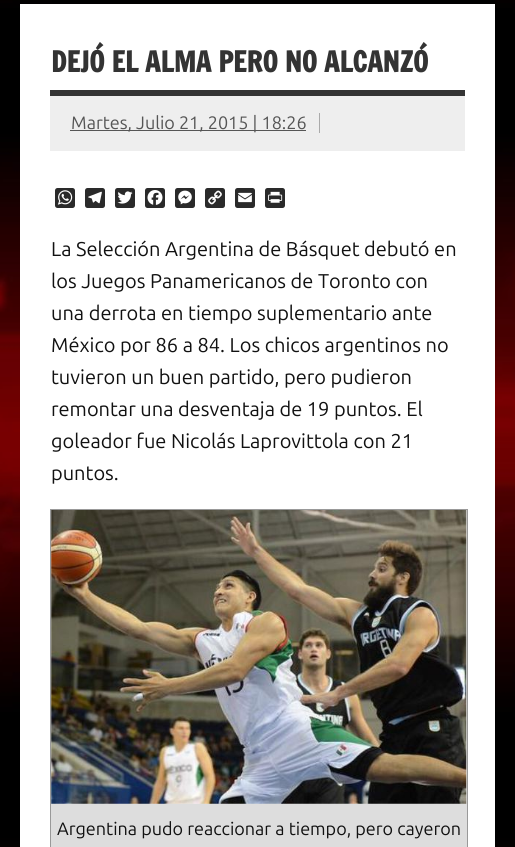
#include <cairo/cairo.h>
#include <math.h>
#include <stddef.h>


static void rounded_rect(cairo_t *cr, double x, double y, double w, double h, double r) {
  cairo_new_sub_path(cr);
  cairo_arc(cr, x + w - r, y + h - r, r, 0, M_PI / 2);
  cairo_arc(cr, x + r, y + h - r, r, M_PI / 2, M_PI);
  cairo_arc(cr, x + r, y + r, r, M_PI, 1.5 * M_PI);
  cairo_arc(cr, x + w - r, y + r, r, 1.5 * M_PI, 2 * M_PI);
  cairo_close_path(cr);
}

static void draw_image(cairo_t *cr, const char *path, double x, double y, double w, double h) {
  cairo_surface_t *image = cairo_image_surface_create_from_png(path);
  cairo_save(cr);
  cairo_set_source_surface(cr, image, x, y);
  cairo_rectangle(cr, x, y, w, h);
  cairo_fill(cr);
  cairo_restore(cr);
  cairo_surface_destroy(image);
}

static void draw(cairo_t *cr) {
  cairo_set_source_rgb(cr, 1, 1, 1);
  cairo_paint(cr);
  draw_image(cr, "images/1.png", 0, 0, 515, 847);
  cairo_set_source_rgb(cr, 0, 0, 0);
  cairo_rectangle(cr, 52, 0, 443, 3);
  cairo_fill(cr);
  cairo_set_source_rgb(cr, 1, 1, 1);
  cairo_rectangle(cr, 20, 4, 475, 843);
  cairo_fill(cr);
  cairo_set_source_rgb(cr, 51 / 255.0, 51 / 255.0, 51 / 255.0);
  cairo_rectangle(cr, 50, 90, 415, 6);
  cairo_fill(cr);
  cairo_set_source_rgb(cr, 238 / 255.0, 238 / 255.0, 238 / 255.0);
  cairo_rectangle(cr, 50, 96, 415, 55);
  cairo_fill(cr);
  cairo_set_source_rgb(cr, 170 / 255.0, 170 / 255.0, 170 / 255.0);
  cairo_rectangle(cr, 319, 113, 1, 20);
  cairo_fill(cr);
  cairo_set_source_rgb(cr, 85 / 255.0, 85 / 255.0, 85 / 255.0);
  cairo_rectangle(cr, 70, 130, 236, 1);
  cairo_fill(cr);
  cairo_set_source_rgb(cr, 42 / 255.0, 42 / 255.0, 42 / 255.0);
  rounded_rect(cr, 55, 188, 20, 20, 2.5);
  cairo_fill(cr);
  draw_image(cr, "images/2.png", 57, 190, 16, 15);
  rounded_rect(cr, 85, 188, 20, 20, 2.5);
  cairo_fill(cr);
  draw_image(cr, "images/3.png", 88, 191, 14, 13);
  rounded_rect(cr, 115, 188, 20, 20, 2.5);
  cairo_fill(cr);
  draw_image(cr, "images/4.png", 117, 191, 16, 13);
  rounded_rect(cr, 145, 188, 20, 20, 2.5);
  cairo_fill(cr);
  draw_image(cr, "images/5.png", 147, 190, 16, 15);
  rounded_rect(cr, 175, 188, 20, 20, 2.5);
  cairo_fill(cr);
  draw_image(cr, "images/6.png", 178, 190, 14, 15);
  rounded_rect(cr, 205, 188, 20, 20, 2.5);
  cairo_fill(cr);
  draw_image(cr, "images/7.png", 208, 190, 14, 15);
  rounded_rect(cr, 235, 188, 20, 20, 2.5);
  cairo_fill(cr);
  draw_image(cr, "images/8.png", 238, 192, 14, 11);
  rounded_rect(cr, 265, 188, 20, 20, 2.5);
  cairo_fill(cr);
  draw_image(cr, "images/9.png", 268, 191, 15, 12);
  cairo_set_source_rgb(cr, 221 / 255.0, 221 / 255.0, 221 / 255.0);
  cairo_rectangle(cr, 50.5, 509.5, 417, 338);
  cairo_fill_preserve(cr);
  cairo_set_source_rgb(cr, 153 / 255.0, 153 / 255.0, 153 / 255.0);
  cairo_set_line_width(cr, 1);
  cairo_stroke(cr);
  draw_image(cr, "images/10.png", 51, 510, 416, 294);
  cairo_select_font_face(cr, "Francois One", CAIRO_FONT_SLANT_NORMAL, CAIRO_FONT_WEIGHT_BOLD);
  cairo_set_font_size(cr, 28);
  cairo_set_source_rgb(cr, 51 / 255.0, 51 / 255.0, 51 / 255.0);
  cairo_move_to(cr, 51, 72);
  cairo_show_text(cr, "DEJÓ EL ALMA PERO NO ALCANZÓ");
  cairo_select_font_face(cr, "Ubuntu", CAIRO_FONT_SLANT_NORMAL, CAIRO_FONT_WEIGHT_NORMAL);
  cairo_set_font_size(cr, 18);
  cairo_set_source_rgb(cr, 85 / 255.0, 85 / 255.0, 85 / 255.0);
  cairo_move_to(cr, 71, 129);
  cairo_show_text(cr, "Martes, Julio 21, 2015 | 18:26");
  cairo_set_font_size(cr, 20);
  cairo_set_source_rgb(cr, 17 / 255.0, 17 / 255.0, 17 / 255.0);
  cairo_move_to(cr, 51, 256);
  cairo_show_text(cr, "La Selección Argentina de Básquet debutó en");
  cairo_move_to(cr, 51, 288);
  cairo_show_text(cr, "los Juegos Panamericanos de Toronto con");
  cairo_move_to(cr, 51, 320);
  cairo_show_text(cr, "una derrota en tiempo suplementario ante");
  cairo_move_to(cr, 51, 352);
  cairo_show_text(cr, "México por 86 a 84. Los chicos argentinos no");
  cairo_move_to(cr, 51, 384);
  cairo_show_text(cr, "tuvieron un buen partido, pero pudieron");
  cairo_move_to(cr, 51, 416);
  cairo_show_text(cr, "remontar una desventaja de 19 puntos. El");
  cairo_move_to(cr, 51, 448);
  cairo_show_text(cr, "goleador fue Nicolás Laprovittola con 21");
  cairo_move_to(cr, 51, 480);
  cairo_show_text(cr, "puntos.");
  cairo_set_font_size(cr, 18);
  cairo_move_to(cr, 57, 835);
  cairo_show_text(cr, "Argentina pudo reaccionar a tiempo, pero cayeron");
}

int main(void) {
  cairo_surface_t *surface = cairo_image_surface_create(CAIRO_FORMAT_RGB24, 515, 847);
  cairo_t *cr = cairo_create(surface);
  cairo_font_options_t *options = cairo_font_options_create();
  cairo_font_options_set_hint_metrics(options, CAIRO_HINT_METRICS_OFF);
  cairo_font_options_set_hint_style(options, CAIRO_HINT_STYLE_NONE);
  cairo_set_font_options(cr, options);
  cairo_set_miter_limit(cr, 4);
  draw(cr);
  cairo_surface_write_to_png(surface, "out.png");
  cairo_font_options_destroy(options);
  cairo_destroy(cr);
  cairo_surface_destroy(surface);
  return 0;
}
